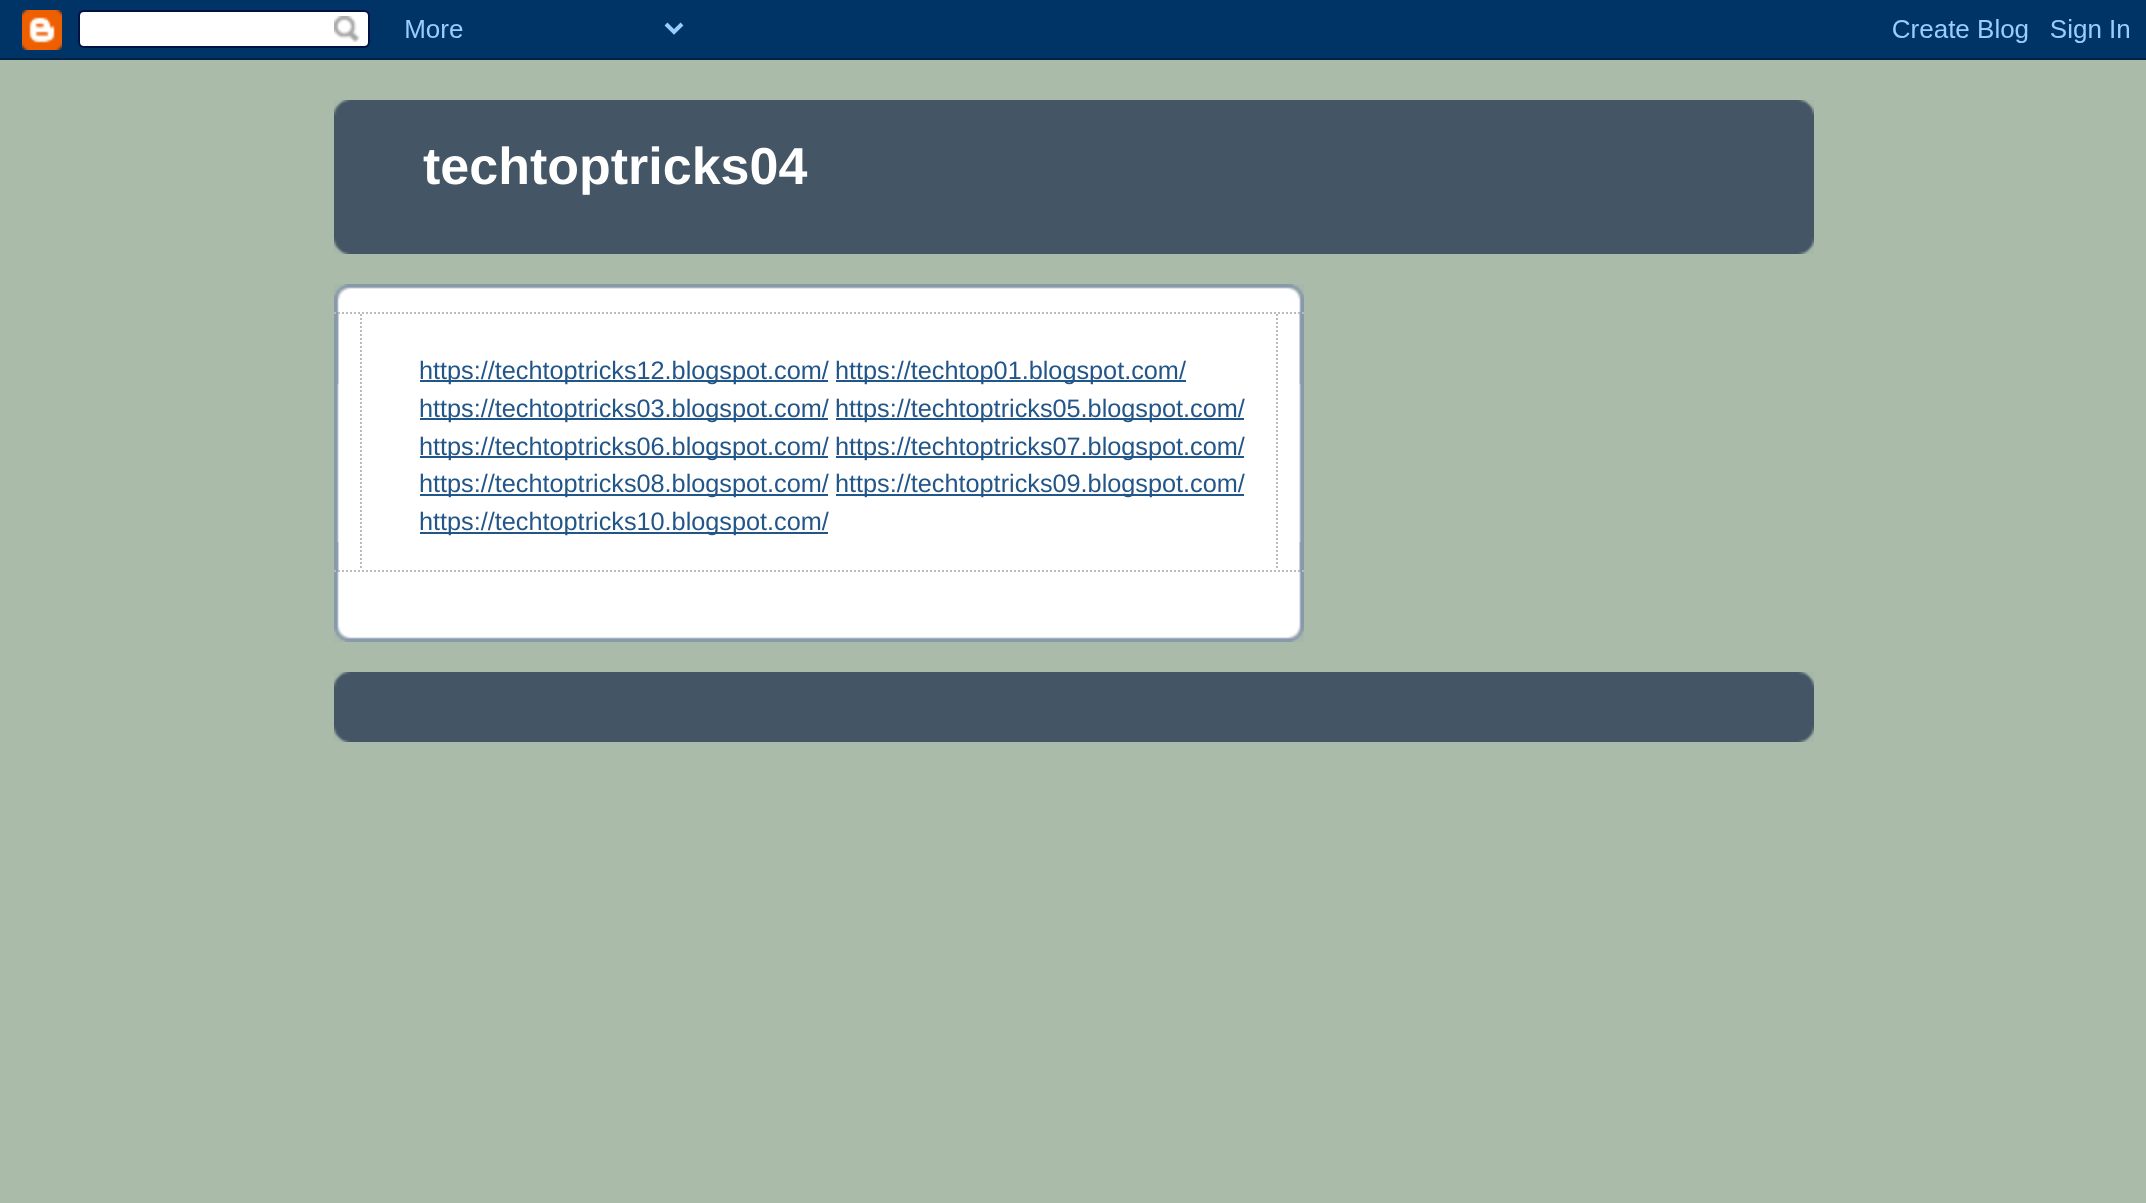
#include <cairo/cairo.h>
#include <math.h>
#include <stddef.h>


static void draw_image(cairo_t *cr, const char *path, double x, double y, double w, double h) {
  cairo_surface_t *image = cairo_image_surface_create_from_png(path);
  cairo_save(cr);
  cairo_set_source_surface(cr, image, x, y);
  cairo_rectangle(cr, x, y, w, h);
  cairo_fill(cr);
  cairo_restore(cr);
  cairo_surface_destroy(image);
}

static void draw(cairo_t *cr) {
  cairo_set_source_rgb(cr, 170 / 255.0, 187 / 255.0, 170 / 255.0);
  cairo_paint(cr);
  draw_image(cr, "images/1.png", 0, 0, 2146, 60);
  cairo_set_source_rgb(cr, 68 / 255.0, 85 / 255.0, 102 / 255.0);
  cairo_rectangle(cr, 334, 100, 1480, 154);
  cairo_fill(cr);
  draw_image(cr, "images/2.png", 334, 100, 1480, 16);
  draw_image(cr, "images/3.png", 334, 238, 1480, 16);
  cairo_set_source_rgb(cr, 1, 1, 1);
  cairo_rectangle(cr, 337, 287, 964, 352);
  cairo_fill(cr);
  draw_image(cr, "images/4.png", 334, 542, 970, 100);
  draw_image(cr, "images/5.png", 334, 284, 970, 100);
  draw_image(cr, "images/6.png", 334, 312, 970, 260);
  cairo_new_path(cr);
  cairo_move_to(cr, 334, 313);
  cairo_line_to(cr, 1304, 313);
  cairo_set_source_rgb(cr, 187 / 255.0, 187 / 255.0, 187 / 255.0);
  cairo_set_dash(cr, (double[]){2, 2}, 2, 0);
  cairo_stroke(cr);
  cairo_new_path(cr);
  cairo_move_to(cr, 334, 571);
  cairo_line_to(cr, 1304, 571);
  cairo_stroke(cr);
  cairo_new_path(cr);
  cairo_move_to(cr, 1277, 314);
  cairo_line_to(cr, 1277, 570);
  cairo_stroke(cr);
  cairo_new_path(cr);
  cairo_move_to(cr, 361, 314);
  cairo_line_to(cr, 361, 570);
  cairo_stroke(cr);
  cairo_set_source_rgb(cr, 34 / 255.0, 85 / 255.0, 136 / 255.0);
  cairo_rectangle(cr, 420, 380, 408, 2);
  cairo_fill(cr);
  cairo_rectangle(cr, 836, 380, 350, 2);
  cairo_fill(cr);
  cairo_rectangle(cr, 420, 418, 408, 2);
  cairo_fill(cr);
  cairo_rectangle(cr, 836, 418, 408, 2);
  cairo_fill(cr);
  cairo_rectangle(cr, 420, 456, 408, 2);
  cairo_fill(cr);
  cairo_rectangle(cr, 836, 456, 408, 2);
  cairo_fill(cr);
  cairo_rectangle(cr, 420, 494, 408, 2);
  cairo_fill(cr);
  cairo_rectangle(cr, 836, 494, 408, 2);
  cairo_fill(cr);
  cairo_rectangle(cr, 420, 532, 408, 2);
  cairo_fill(cr);
  cairo_set_source_rgb(cr, 68 / 255.0, 85 / 255.0, 102 / 255.0);
  cairo_rectangle(cr, 334, 672, 1480, 70);
  cairo_fill(cr);
  draw_image(cr, "images/2.png", 334, 672, 1480, 16);
  draw_image(cr, "images/3.png", 334, 726, 1480, 16);
  cairo_select_font_face(cr, "Liberation Sans", CAIRO_FONT_SLANT_NORMAL, CAIRO_FONT_WEIGHT_BOLD);
  cairo_set_font_size(cr, 52);
  cairo_set_source_rgb(cr, 1, 1, 1);
  cairo_move_to(cr, 423, 184);
  cairo_show_text(cr, "techtoptricks04");
  cairo_select_font_face(cr, "Liberation Sans", CAIRO_FONT_SLANT_NORMAL, CAIRO_FONT_WEIGHT_NORMAL);
  cairo_set_font_size(cr, 25.25);
  cairo_set_source_rgb(cr, 34 / 255.0, 85 / 255.0, 136 / 255.0);
  cairo_move_to(cr, 419, 379);
  cairo_show_text(cr, "https://techtoptricks12.blogspot.com/");
  cairo_move_to(cr, 835, 379);
  cairo_show_text(cr, "https://techtop01.blogspot.com/");
  cairo_move_to(cr, 419, 417);
  cairo_show_text(cr, "https://techtoptricks03.blogspot.com/");
  cairo_move_to(cr, 835, 417);
  cairo_show_text(cr, "https://techtoptricks05.blogspot.com/");
  cairo_move_to(cr, 419, 455);
  cairo_show_text(cr, "https://techtoptricks06.blogspot.com/");
  cairo_move_to(cr, 835, 455);
  cairo_show_text(cr, "https://techtoptricks07.blogspot.com/");
  cairo_move_to(cr, 419, 492);
  cairo_show_text(cr, "https://techtoptricks08.blogspot.com/");
  cairo_move_to(cr, 835, 492);
  cairo_show_text(cr, "https://techtoptricks09.blogspot.com/");
  cairo_move_to(cr, 419, 530);
  cairo_show_text(cr, "https://techtoptricks10.blogspot.com/");
}

int main(void) {
  cairo_surface_t *surface = cairo_image_surface_create(CAIRO_FORMAT_RGB24, 2146, 1203);
  cairo_t *cr = cairo_create(surface);
  cairo_font_options_t *options = cairo_font_options_create();
  cairo_font_options_set_hint_metrics(options, CAIRO_HINT_METRICS_OFF);
  cairo_font_options_set_hint_style(options, CAIRO_HINT_STYLE_NONE);
  cairo_set_font_options(cr, options);
  cairo_set_miter_limit(cr, 4);
  draw(cr);
  cairo_surface_write_to_png(surface, "out.png");
  cairo_font_options_destroy(options);
  cairo_destroy(cr);
  cairo_surface_destroy(surface);
  return 0;
}
